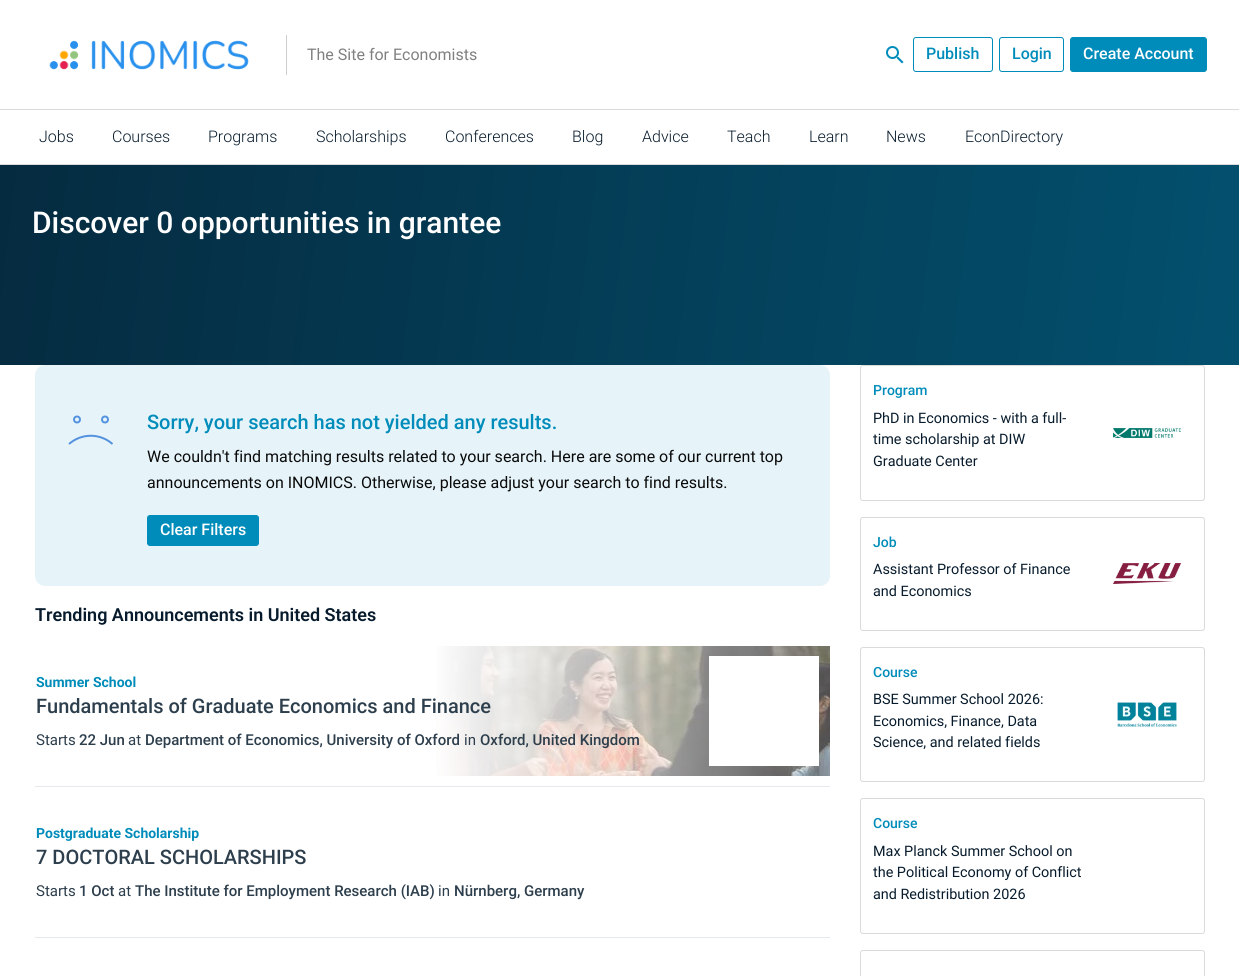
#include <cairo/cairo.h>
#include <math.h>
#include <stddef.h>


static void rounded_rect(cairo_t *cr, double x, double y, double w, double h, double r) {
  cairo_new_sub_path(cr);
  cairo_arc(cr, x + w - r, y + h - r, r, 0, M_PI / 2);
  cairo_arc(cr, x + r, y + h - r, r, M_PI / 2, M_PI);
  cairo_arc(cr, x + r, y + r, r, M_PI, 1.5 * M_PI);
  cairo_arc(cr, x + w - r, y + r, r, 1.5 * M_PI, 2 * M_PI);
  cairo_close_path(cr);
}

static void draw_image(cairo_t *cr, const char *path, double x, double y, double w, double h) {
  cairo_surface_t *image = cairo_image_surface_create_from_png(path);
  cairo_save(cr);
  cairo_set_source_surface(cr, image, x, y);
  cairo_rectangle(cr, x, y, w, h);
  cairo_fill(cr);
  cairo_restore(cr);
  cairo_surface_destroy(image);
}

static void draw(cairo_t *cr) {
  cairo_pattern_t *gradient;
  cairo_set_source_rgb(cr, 1, 1, 1);
  cairo_paint(cr);
  draw_image(cr, "images/1.png", 49, 40, 200, 30);
  cairo_set_source_rgb(cr, 205 / 255.0, 205 / 255.0, 205 / 255.0);
  cairo_rectangle(cr, 286, 35, 1, 40);
  cairo_fill(cr);
  draw_image(cr, "images/2.png", 886, 46, 18, 18);
  rounded_rect(cr, 913.5, 37.5, 79, 34, 2.5);
  cairo_set_source_rgb(cr, 0, 140 / 255.0, 186 / 255.0);
  cairo_set_line_width(cr, 1);
  cairo_stroke(cr);
  rounded_rect(cr, 999.5, 37.5, 64, 34, 2.5);
  cairo_stroke(cr);
  rounded_rect(cr, 1070.5, 37.5, 136, 34, 2.5);
  cairo_fill_preserve(cr);
  cairo_stroke(cr);
  cairo_set_source_rgb(cr, 218 / 255.0, 218 / 255.0, 218 / 255.0);
  cairo_rectangle(cr, 0, 109, 1239, 1);
  cairo_fill(cr);
  cairo_rectangle(cr, 0, 164, 1239, 1);
  cairo_fill(cr);
  gradient = cairo_pattern_create_linear(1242, 341, -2.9, 189);
  cairo_pattern_add_color_stop_rgba(gradient, 0, 3 / 255.0, 80 / 255.0, 110 / 255.0, 1);
  cairo_pattern_add_color_stop_rgba(gradient, 1, 5 / 255.0, 43 / 255.0, 64 / 255.0, 1);
  cairo_set_source(cr, gradient);
  cairo_pattern_destroy(gradient);
  cairo_rectangle(cr, 0, 165, 1239, 200);
  cairo_fill(cr);
  cairo_set_source_rgb(cr, 230 / 255.0, 244 / 255.0, 249 / 255.0);
  rounded_rect(cr, 35, 365, 795, 221, 10);
  cairo_fill(cr);
  cairo_arc(cr, 77, 419.5, 3, 0, 2 * M_PI);
  cairo_set_source_rgb(cr, 84 / 255.0, 146 / 255.0, 223 / 255.0);
  cairo_set_line_width(cr, 2);
  cairo_stroke(cr);
  cairo_arc(cr, 105, 419.5, 3, 0, 2 * M_PI);
  cairo_stroke(cr);
  cairo_new_path(cr);
  cairo_move_to(cr, 69, 444);
  cairo_curve_to(cr, 81.5, 433, 100, 433, 112.5, 444);
  cairo_stroke(cr);
  cairo_set_source_rgb(cr, 0, 140 / 255.0, 186 / 255.0);
  rounded_rect(cr, 147.5, 515.5, 111, 30, 2.5);
  cairo_fill_preserve(cr);
  cairo_set_line_width(cr, 1);
  cairo_stroke(cr);
  cairo_set_source_rgb(cr, 228 / 255.0, 233 / 255.0, 237 / 255.0);
  cairo_rectangle(cr, 35, 786, 795, 1);
  cairo_fill(cr);
  draw_image(cr, "images/3.png", 436, 646, 394, 130);
  gradient = cairo_pattern_create_linear(830, 711, 35, 711);
  cairo_pattern_add_color_stop_rgba(gradient, 0, 1, 1, 1, 0.3);
  cairo_pattern_add_color_stop_rgba(gradient, 0.5, 1, 1, 1, 1);
  cairo_set_source(cr, gradient);
  cairo_pattern_destroy(gradient);
  cairo_rectangle(cr, 436, 646, 394, 130);
  cairo_fill(cr);
  cairo_set_source_rgb(cr, 1, 1, 1);
  cairo_rectangle(cr, 709, 656, 110, 110);
  cairo_fill(cr);
  cairo_set_source_rgb(cr, 228 / 255.0, 233 / 255.0, 237 / 255.0);
  cairo_rectangle(cr, 35, 937, 795, 1);
  cairo_fill(cr);
  rounded_rect(cr, 860.5, 365.5, 344, 135, 2.5);
  cairo_set_source_rgb(cr, 218 / 255.0, 218 / 255.0, 218 / 255.0);
  cairo_stroke(cr);
  draw_image(cr, "images/4.png", 1113, 428, 68, 10);
  rounded_rect(cr, 860.5, 517.5, 344, 113, 2.5);
  cairo_stroke(cr);
  draw_image(cr, "images/5.png", 1113, 563, 68, 21);
  rounded_rect(cr, 860.5, 647.5, 344, 134, 2.5);
  cairo_stroke(cr);
  draw_image(cr, "images/6.png", 1117, 702, 60, 25);
  rounded_rect(cr, 860.5, 798.5, 344, 135, 2.5);
  cairo_stroke(cr);
  rounded_rect(cr, 860.5, 950.5, 344, 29, 2.5);
  cairo_stroke(cr);
  cairo_select_font_face(cr, "Roboto", CAIRO_FONT_SLANT_NORMAL, CAIRO_FONT_WEIGHT_NORMAL);
  cairo_set_font_size(cr, 16);
  cairo_set_source_rgb(cr, 128 / 255.0, 128 / 255.0, 128 / 255.0);
  cairo_move_to(cr, 307, 60);
  cairo_show_text(cr, "The Site for Economists");
  cairo_select_font_face(cr, "Roboto Medium", CAIRO_FONT_SLANT_NORMAL, CAIRO_FONT_WEIGHT_NORMAL);
  cairo_set_source_rgb(cr, 0, 140 / 255.0, 186 / 255.0);
  cairo_move_to(cr, 926, 59);
  cairo_show_text(cr, "Publish");
  cairo_move_to(cr, 1012, 59);
  cairo_show_text(cr, "Login");
  cairo_set_source_rgb(cr, 1, 1, 1);
  cairo_move_to(cr, 1083, 59);
  cairo_show_text(cr, "Create Account");
  cairo_select_font_face(cr, "Roboto Light", CAIRO_FONT_SLANT_NORMAL, CAIRO_FONT_WEIGHT_NORMAL);
  cairo_set_source_rgb(cr, 7 / 255.0, 27 / 255.0, 44 / 255.0);
  cairo_move_to(cr, 39, 142);
  cairo_show_text(cr, "Jobs");
  cairo_move_to(cr, 112, 142);
  cairo_show_text(cr, "Courses");
  cairo_move_to(cr, 208, 142);
  cairo_show_text(cr, "Programs");
  cairo_move_to(cr, 316, 142);
  cairo_show_text(cr, "Scholarships");
  cairo_move_to(cr, 445, 142);
  cairo_show_text(cr, "Conferences");
  cairo_move_to(cr, 572, 142);
  cairo_show_text(cr, "Blog");
  cairo_move_to(cr, 642, 142);
  cairo_show_text(cr, "Advice");
  cairo_move_to(cr, 727, 142);
  cairo_show_text(cr, "Teach");
  cairo_move_to(cr, 809, 142);
  cairo_show_text(cr, "Learn");
  cairo_move_to(cr, 886, 142);
  cairo_show_text(cr, "News");
  cairo_move_to(cr, 965, 142);
  cairo_show_text(cr, "EconDirectory");
  cairo_select_font_face(cr, "Roboto Medium", CAIRO_FONT_SLANT_NORMAL, CAIRO_FONT_WEIGHT_NORMAL);
  cairo_set_font_size(cr, 30);
  cairo_set_source_rgb(cr, 1, 1, 1);
  cairo_move_to(cr, 32, 233);
  cairo_show_text(cr, "Discover 0 opportunities in grantee");
  cairo_set_font_size(cr, 20);
  cairo_set_source_rgb(cr, 0, 140 / 255.0, 186 / 255.0);
  cairo_move_to(cr, 147, 429);
  cairo_show_text(cr, "Sorry, your search has not yielded any results.");
  cairo_select_font_face(cr, "Roboto", CAIRO_FONT_SLANT_NORMAL, CAIRO_FONT_WEIGHT_NORMAL);
  cairo_set_font_size(cr, 16);
  cairo_set_source_rgb(cr, 10 / 255.0, 10 / 255.0, 10 / 255.0);
  cairo_move_to(cr, 147, 462);
  cairo_show_text(cr, "We couldn't find matching results related to your search. Here are some of our current top");
  cairo_move_to(cr, 147, 488);
  cairo_show_text(cr, "announcements on INOMICS. Otherwise, please adjust your search to find results.");
  cairo_select_font_face(cr, "Roboto Medium", CAIRO_FONT_SLANT_NORMAL, CAIRO_FONT_WEIGHT_NORMAL);
  cairo_set_source_rgb(cr, 1, 1, 1);
  cairo_move_to(cr, 160, 535);
  cairo_show_text(cr, "Clear Filters");
  cairo_select_font_face(cr, "Roboto SemiBold", CAIRO_FONT_SLANT_NORMAL, CAIRO_FONT_WEIGHT_NORMAL);
  cairo_set_font_size(cr, 18);
  cairo_set_source_rgb(cr, 7 / 255.0, 27 / 255.0, 44 / 255.0);
  cairo_move_to(cr, 35, 621);
  cairo_show_text(cr, "Trending Announcements in United States");
  cairo_select_font_face(cr, "Roboto", CAIRO_FONT_SLANT_NORMAL, CAIRO_FONT_WEIGHT_BOLD);
  cairo_set_font_size(cr, 14);
  cairo_set_source_rgb(cr, 0, 140 / 255.0, 186 / 255.0);
  cairo_move_to(cr, 36, 687);
  cairo_show_text(cr, "Summer School");
  cairo_select_font_face(cr, "Roboto Medium", CAIRO_FONT_SLANT_NORMAL, CAIRO_FONT_WEIGHT_NORMAL);
  cairo_set_font_size(cr, 20);
  cairo_set_source_rgb(cr, 45 / 255.0, 62 / 255.0, 76 / 255.0);
  cairo_move_to(cr, 36, 713);
  cairo_show_text(cr, "Fundamentals of Graduate Economics and Finance");
  cairo_select_font_face(cr, "Roboto", CAIRO_FONT_SLANT_NORMAL, CAIRO_FONT_WEIGHT_NORMAL);
  cairo_set_font_size(cr, 15);
  cairo_move_to(cr, 36, 745);
  cairo_show_text(cr, "Starts");
  cairo_select_font_face(cr, "Roboto Medium", CAIRO_FONT_SLANT_NORMAL, CAIRO_FONT_WEIGHT_NORMAL);
  cairo_move_to(cr, 79, 745);
  cairo_show_text(cr, "22 Jun");
  cairo_select_font_face(cr, "Roboto", CAIRO_FONT_SLANT_NORMAL, CAIRO_FONT_WEIGHT_NORMAL);
  cairo_move_to(cr, 128, 745);
  cairo_show_text(cr, "at");
  cairo_select_font_face(cr, "Roboto Medium", CAIRO_FONT_SLANT_NORMAL, CAIRO_FONT_WEIGHT_NORMAL);
  cairo_move_to(cr, 145, 745);
  cairo_show_text(cr, "Department of Economics, University of Oxford");
  cairo_select_font_face(cr, "Roboto", CAIRO_FONT_SLANT_NORMAL, CAIRO_FONT_WEIGHT_NORMAL);
  cairo_move_to(cr, 464, 745);
  cairo_show_text(cr, "in");
  cairo_select_font_face(cr, "Roboto Medium", CAIRO_FONT_SLANT_NORMAL, CAIRO_FONT_WEIGHT_NORMAL);
  cairo_move_to(cr, 480, 745);
  cairo_show_text(cr, "Oxford, United Kingdom");
  cairo_select_font_face(cr, "Roboto", CAIRO_FONT_SLANT_NORMAL, CAIRO_FONT_WEIGHT_BOLD);
  cairo_set_font_size(cr, 14);
  cairo_set_source_rgb(cr, 0, 140 / 255.0, 186 / 255.0);
  cairo_move_to(cr, 36, 838);
  cairo_show_text(cr, "Postgraduate Scholarship");
  cairo_select_font_face(cr, "Roboto Medium", CAIRO_FONT_SLANT_NORMAL, CAIRO_FONT_WEIGHT_NORMAL);
  cairo_set_font_size(cr, 20);
  cairo_set_source_rgb(cr, 45 / 255.0, 62 / 255.0, 76 / 255.0);
  cairo_move_to(cr, 36, 864);
  cairo_show_text(cr, "7 DOCTORAL SCHOLARSHIPS");
  cairo_select_font_face(cr, "Roboto", CAIRO_FONT_SLANT_NORMAL, CAIRO_FONT_WEIGHT_NORMAL);
  cairo_set_font_size(cr, 15);
  cairo_move_to(cr, 36, 896);
  cairo_show_text(cr, "Starts");
  cairo_select_font_face(cr, "Roboto Medium", CAIRO_FONT_SLANT_NORMAL, CAIRO_FONT_WEIGHT_NORMAL);
  cairo_move_to(cr, 79, 896);
  cairo_show_text(cr, "1 Oct");
  cairo_select_font_face(cr, "Roboto", CAIRO_FONT_SLANT_NORMAL, CAIRO_FONT_WEIGHT_NORMAL);
  cairo_move_to(cr, 118, 896);
  cairo_show_text(cr, "at");
  cairo_select_font_face(cr, "Roboto Medium", CAIRO_FONT_SLANT_NORMAL, CAIRO_FONT_WEIGHT_NORMAL);
  cairo_move_to(cr, 135, 896);
  cairo_show_text(cr, "The Institute for Employment Research (IAB)");
  cairo_select_font_face(cr, "Roboto", CAIRO_FONT_SLANT_NORMAL, CAIRO_FONT_WEIGHT_NORMAL);
  cairo_move_to(cr, 438, 896);
  cairo_show_text(cr, "in");
  cairo_select_font_face(cr, "Roboto Medium", CAIRO_FONT_SLANT_NORMAL, CAIRO_FONT_WEIGHT_NORMAL);
  cairo_move_to(cr, 454, 896);
  cairo_show_text(cr, "Nürnberg, Germany");
  cairo_set_font_size(cr, 14);
  cairo_set_source_rgb(cr, 0, 140 / 255.0, 186 / 255.0);
  cairo_move_to(cr, 873, 395);
  cairo_show_text(cr, "Program");
  cairo_select_font_face(cr, "Roboto", CAIRO_FONT_SLANT_NORMAL, CAIRO_FONT_WEIGHT_NORMAL);
  cairo_set_font_size(cr, 14.4);
  cairo_set_source_rgb(cr, 7 / 255.0, 27 / 255.0, 44 / 255.0);
  cairo_move_to(cr, 873, 423);
  cairo_show_text(cr, "PhD in Economics - with a full-");
  cairo_move_to(cr, 873, 444);
  cairo_show_text(cr, "time scholarship at DIW");
  cairo_move_to(cr, 873, 466);
  cairo_show_text(cr, "Graduate Center");
  cairo_select_font_face(cr, "Roboto Medium", CAIRO_FONT_SLANT_NORMAL, CAIRO_FONT_WEIGHT_NORMAL);
  cairo_set_font_size(cr, 14);
  cairo_set_source_rgb(cr, 0, 140 / 255.0, 186 / 255.0);
  cairo_move_to(cr, 873, 547);
  cairo_show_text(cr, "Job");
  cairo_select_font_face(cr, "Roboto", CAIRO_FONT_SLANT_NORMAL, CAIRO_FONT_WEIGHT_NORMAL);
  cairo_set_font_size(cr, 14.4);
  cairo_set_source_rgb(cr, 7 / 255.0, 27 / 255.0, 44 / 255.0);
  cairo_move_to(cr, 873, 574);
  cairo_show_text(cr, "Assistant Professor of Finance");
  cairo_move_to(cr, 873, 596);
  cairo_show_text(cr, "and Economics");
  cairo_select_font_face(cr, "Roboto Medium", CAIRO_FONT_SLANT_NORMAL, CAIRO_FONT_WEIGHT_NORMAL);
  cairo_set_font_size(cr, 14);
  cairo_set_source_rgb(cr, 0, 140 / 255.0, 186 / 255.0);
  cairo_move_to(cr, 873, 677);
  cairo_show_text(cr, "Course");
  cairo_select_font_face(cr, "Roboto", CAIRO_FONT_SLANT_NORMAL, CAIRO_FONT_WEIGHT_NORMAL);
  cairo_set_font_size(cr, 14.4);
  cairo_set_source_rgb(cr, 7 / 255.0, 27 / 255.0, 44 / 255.0);
  cairo_move_to(cr, 873, 704);
  cairo_show_text(cr, "BSE Summer School 2026:");
  cairo_move_to(cr, 873, 726);
  cairo_show_text(cr, "Economics, Finance, Data");
  cairo_move_to(cr, 873, 747);
  cairo_show_text(cr, "Science, and related fields");
  cairo_select_font_face(cr, "Roboto Medium", CAIRO_FONT_SLANT_NORMAL, CAIRO_FONT_WEIGHT_NORMAL);
  cairo_set_font_size(cr, 14);
  cairo_set_source_rgb(cr, 0, 140 / 255.0, 186 / 255.0);
  cairo_move_to(cr, 873, 828);
  cairo_show_text(cr, "Course");
  cairo_select_font_face(cr, "Roboto", CAIRO_FONT_SLANT_NORMAL, CAIRO_FONT_WEIGHT_NORMAL);
  cairo_set_font_size(cr, 14.4);
  cairo_set_source_rgb(cr, 7 / 255.0, 27 / 255.0, 44 / 255.0);
  cairo_move_to(cr, 873, 856);
  cairo_show_text(cr, "Max Planck Summer School on");
  cairo_move_to(cr, 873, 877);
  cairo_show_text(cr, "the Political Economy of Conflict");
  cairo_move_to(cr, 873, 899);
  cairo_show_text(cr, "and Redistribution 2026");
}

int main(void) {
  cairo_surface_t *surface = cairo_image_surface_create(CAIRO_FORMAT_RGB24, 1239, 976);
  cairo_t *cr = cairo_create(surface);
  cairo_font_options_t *options = cairo_font_options_create();
  cairo_font_options_set_hint_metrics(options, CAIRO_HINT_METRICS_OFF);
  cairo_font_options_set_hint_style(options, CAIRO_HINT_STYLE_NONE);
  cairo_set_font_options(cr, options);
  cairo_set_miter_limit(cr, 4);
  draw(cr);
  cairo_surface_write_to_png(surface, "out.png");
  cairo_font_options_destroy(options);
  cairo_destroy(cr);
  cairo_surface_destroy(surface);
  return 0;
}
